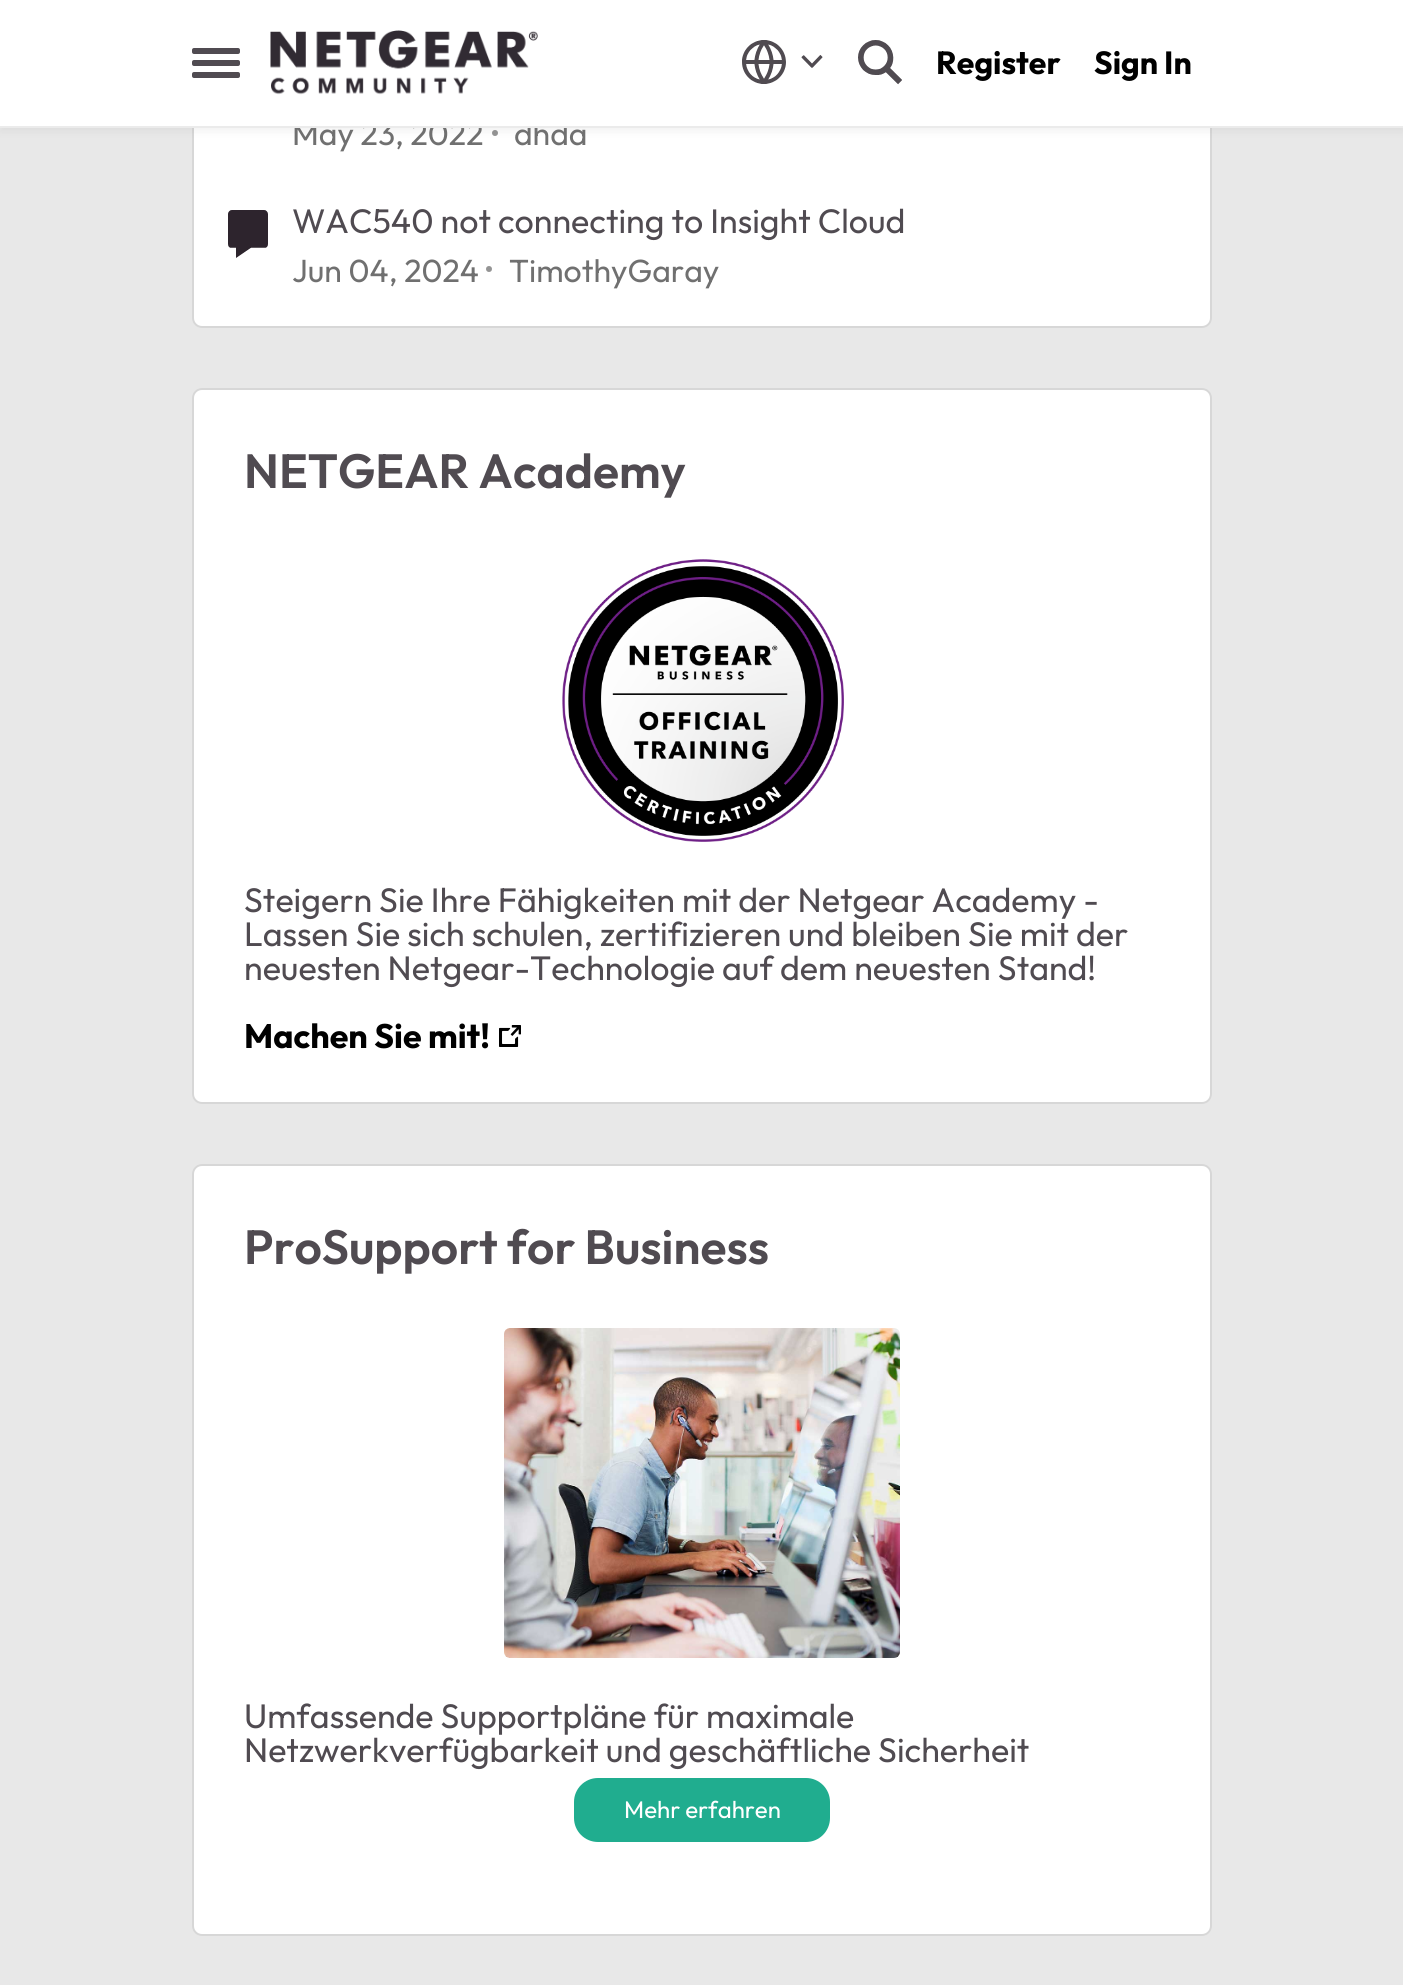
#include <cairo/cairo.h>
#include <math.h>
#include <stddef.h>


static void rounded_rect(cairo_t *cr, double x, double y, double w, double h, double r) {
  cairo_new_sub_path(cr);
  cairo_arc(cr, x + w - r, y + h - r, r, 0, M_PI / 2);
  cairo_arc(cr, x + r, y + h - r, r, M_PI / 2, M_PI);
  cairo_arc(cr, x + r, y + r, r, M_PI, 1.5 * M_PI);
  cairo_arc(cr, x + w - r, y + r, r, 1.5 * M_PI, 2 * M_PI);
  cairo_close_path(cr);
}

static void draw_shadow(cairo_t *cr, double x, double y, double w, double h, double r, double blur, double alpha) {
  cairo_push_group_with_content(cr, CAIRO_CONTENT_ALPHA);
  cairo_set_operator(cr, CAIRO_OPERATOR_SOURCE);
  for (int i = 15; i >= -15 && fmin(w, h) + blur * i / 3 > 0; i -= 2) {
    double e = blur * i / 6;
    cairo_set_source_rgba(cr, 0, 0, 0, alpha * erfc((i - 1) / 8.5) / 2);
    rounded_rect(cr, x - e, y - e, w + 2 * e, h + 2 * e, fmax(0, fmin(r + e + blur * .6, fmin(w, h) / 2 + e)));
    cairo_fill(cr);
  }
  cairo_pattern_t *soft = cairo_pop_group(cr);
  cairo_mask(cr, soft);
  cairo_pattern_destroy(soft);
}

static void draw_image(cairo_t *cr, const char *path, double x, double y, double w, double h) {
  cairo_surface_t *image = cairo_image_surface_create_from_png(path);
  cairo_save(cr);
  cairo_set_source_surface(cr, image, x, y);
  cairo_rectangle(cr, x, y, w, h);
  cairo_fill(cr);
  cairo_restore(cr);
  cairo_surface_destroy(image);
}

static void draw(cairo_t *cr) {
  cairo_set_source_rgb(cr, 232 / 255.0, 232 / 255.0, 232 / 255.0);
  cairo_paint(cr);
  cairo_set_source_rgb(cr, 1, 1, 1);
  rounded_rect(cr, 192, -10, 1020, 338, 10);
  cairo_fill(cr);
  rounded_rect(cr, 193, -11, 1018, 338, 9);
  cairo_set_source_rgba(cr, 0, 0, 0, 0.16);
  cairo_stroke(cr);
  cairo_set_source_rgb(cr, 148 / 255.0, 148 / 255.0, 148 / 255.0);
  cairo_arc(cr, 495, 133, 3, 0, 2 * M_PI);
  cairo_fill(cr);
  cairo_set_source_rgb(cr, 51 / 255.0, 51 / 255.0, 51 / 255.0);
  draw_shadow(cr, 0, 4, 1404, 128, 0, 4, 0.06);
  draw_image(cr, "images/5.png", 228, 210, 40, 48);
  cairo_set_source_rgb(cr, 148 / 255.0, 148 / 255.0, 148 / 255.0);
  cairo_arc(cr, 489, 269, 3, 0, 2 * M_PI);
  cairo_fill(cr);
  cairo_set_source_rgb(cr, 1, 1, 1);
  rounded_rect(cr, 192, 388, 1020, 716, 10);
  cairo_fill(cr);
  rounded_rect(cr, 193, 389, 1018, 714, 9);
  cairo_set_source_rgba(cr, 0, 0, 0, 0.16);
  cairo_stroke(cr);
  draw_image(cr, "images/6.png", 562, 559, 282, 283);
  draw_image(cr, "images/7.png", 499, 1025, 22, 22);
  cairo_set_source_rgb(cr, 1, 1, 1);
  rounded_rect(cr, 192, 1164, 1020, 772, 10);
  cairo_fill(cr);
  rounded_rect(cr, 193, 1165, 1018, 770, 9);
  cairo_set_source_rgba(cr, 0, 0, 0, 0.16);
  cairo_stroke(cr);
  draw_image(cr, "images/8.png", 504, 1328, 396, 330);
  cairo_set_source_rgb(cr, 32 / 255.0, 173 / 255.0, 143 / 255.0);
  rounded_rect(cr, 574, 1778, 256, 64, 24);
  cairo_fill(cr);
  cairo_select_font_face(cr, "Outfit", CAIRO_FONT_SLANT_NORMAL, CAIRO_FONT_WEIGHT_NORMAL);
  cairo_set_font_size(cr, 32);
  cairo_set_source_rgb(cr, 112 / 255.0, 112 / 255.0, 112 / 255.0);
  cairo_move_to(cr, 292, 145);
  cairo_show_text(cr, "May 23, 2022");
  cairo_move_to(cr, 514, 145);
  cairo_show_text(cr, "dhda");
  cairo_set_source_rgb(cr, 1, 1, 1);
  cairo_rectangle(cr, 0, 0, 1403, 126);
  cairo_fill(cr);
  draw_image(cr, "images/4.png", 858, 40, 44, 45);
  draw_image(cr, "images/3.png", 801, 55, 22, 13);
  draw_image(cr, "images/2.png", 742, 40, 44, 44);
  draw_image(cr, "images/1.png", 270, 30, 268, 65);
  cairo_select_font_face(cr, "Outfit", CAIRO_FONT_SLANT_NORMAL, CAIRO_FONT_WEIGHT_BOLD);
  cairo_set_source_rgb(cr, 0, 0, 0);
  cairo_move_to(cr, 1094, 74);
  cairo_show_text(cr, "Sign In");
  cairo_move_to(cr, 936, 74);
  cairo_show_text(cr, "Register");
  cairo_set_source_rgb(cr, 80 / 255.0, 75 / 255.0, 81 / 255.0);
  rounded_rect(cr, 192, 72, 48, 6, 2);
  cairo_fill(cr);
  rounded_rect(cr, 192, 60, 48, 6, 2);
  cairo_fill(cr);
  rounded_rect(cr, 192, 48, 48, 6, 2);
  cairo_fill(cr);
  cairo_set_source_rgb(cr, 235 / 255.0, 235 / 255.0, 235 / 255.0);
  cairo_rectangle(cr, 0, 126, 1403, 2);
  cairo_fill(cr);
  cairo_select_font_face(cr, "Outfit", CAIRO_FONT_SLANT_NORMAL, CAIRO_FONT_WEIGHT_NORMAL);
  cairo_set_font_size(cr, 34);
  cairo_set_source_rgb(cr, 80 / 255.0, 75 / 255.0, 81 / 255.0);
  cairo_move_to(cr, 292, 233);
  cairo_show_text(cr, "WAC540 not connecting to Insight Cloud");
  cairo_set_font_size(cr, 32);
  cairo_set_source_rgb(cr, 112 / 255.0, 112 / 255.0, 112 / 255.0);
  cairo_move_to(cr, 292, 282);
  cairo_show_text(cr, "Jun 04, 2024");
  cairo_move_to(cr, 509, 282);
  cairo_show_text(cr, "TimothyGaray");
  cairo_select_font_face(cr, "Outfit SemiBold", CAIRO_FONT_SLANT_NORMAL, CAIRO_FONT_WEIGHT_NORMAL);
  cairo_set_font_size(cr, 48);
  cairo_set_source_rgb(cr, 80 / 255.0, 75 / 255.0, 81 / 255.0);
  cairo_move_to(cr, 244, 488);
  cairo_show_text(cr, "NETGEAR Academy");
  cairo_select_font_face(cr, "Outfit", CAIRO_FONT_SLANT_NORMAL, CAIRO_FONT_WEIGHT_NORMAL);
  cairo_set_font_size(cr, 34);
  cairo_move_to(cr, 244, 912);
  cairo_show_text(cr, "Steigern Sie Ihre Fähigkeiten mit der Netgear Academy -");
  cairo_move_to(cr, 244, 946);
  cairo_show_text(cr, "Lassen Sie sich schulen, zertifizieren und bleiben Sie mit der");
  cairo_move_to(cr, 244, 980);
  cairo_show_text(cr, "neuesten Netgear-Technologie auf dem neuesten Stand!");
  cairo_select_font_face(cr, "Outfit", CAIRO_FONT_SLANT_NORMAL, CAIRO_FONT_WEIGHT_BOLD);
  cairo_set_source_rgb(cr, 0, 0, 0);
  cairo_move_to(cr, 244, 1048);
  cairo_show_text(cr, "Machen Sie mit!");
  cairo_select_font_face(cr, "Outfit SemiBold", CAIRO_FONT_SLANT_NORMAL, CAIRO_FONT_WEIGHT_NORMAL);
  cairo_set_font_size(cr, 48);
  cairo_set_source_rgb(cr, 80 / 255.0, 75 / 255.0, 81 / 255.0);
  cairo_move_to(cr, 244, 1264);
  cairo_show_text(cr, "ProSupport for Business");
  cairo_select_font_face(cr, "Outfit", CAIRO_FONT_SLANT_NORMAL, CAIRO_FONT_WEIGHT_NORMAL);
  cairo_set_font_size(cr, 34);
  cairo_move_to(cr, 244, 1728);
  cairo_show_text(cr, "Umfassende Supportpläne für maximale");
  cairo_move_to(cr, 244, 1762);
  cairo_show_text(cr, "Netzwerkverfügbarkeit und geschäftliche Sicherheit");
  cairo_set_font_size(cr, 24);
  cairo_set_source_rgb(cr, 1, 1, 1);
  cairo_move_to(cr, 624, 1818);
  cairo_show_text(cr, "Mehr erfahren");
}

int main(void) {
  cairo_surface_t *surface = cairo_image_surface_create(CAIRO_FORMAT_RGB24, 1403, 1985);
  cairo_t *cr = cairo_create(surface);
  cairo_font_options_t *options = cairo_font_options_create();
  cairo_font_options_set_hint_metrics(options, CAIRO_HINT_METRICS_OFF);
  cairo_font_options_set_hint_style(options, CAIRO_HINT_STYLE_NONE);
  cairo_set_font_options(cr, options);
  cairo_set_miter_limit(cr, 4);
  draw(cr);
  cairo_surface_write_to_png(surface, "out.png");
  cairo_font_options_destroy(options);
  cairo_destroy(cr);
  cairo_surface_destroy(surface);
  return 0;
}
